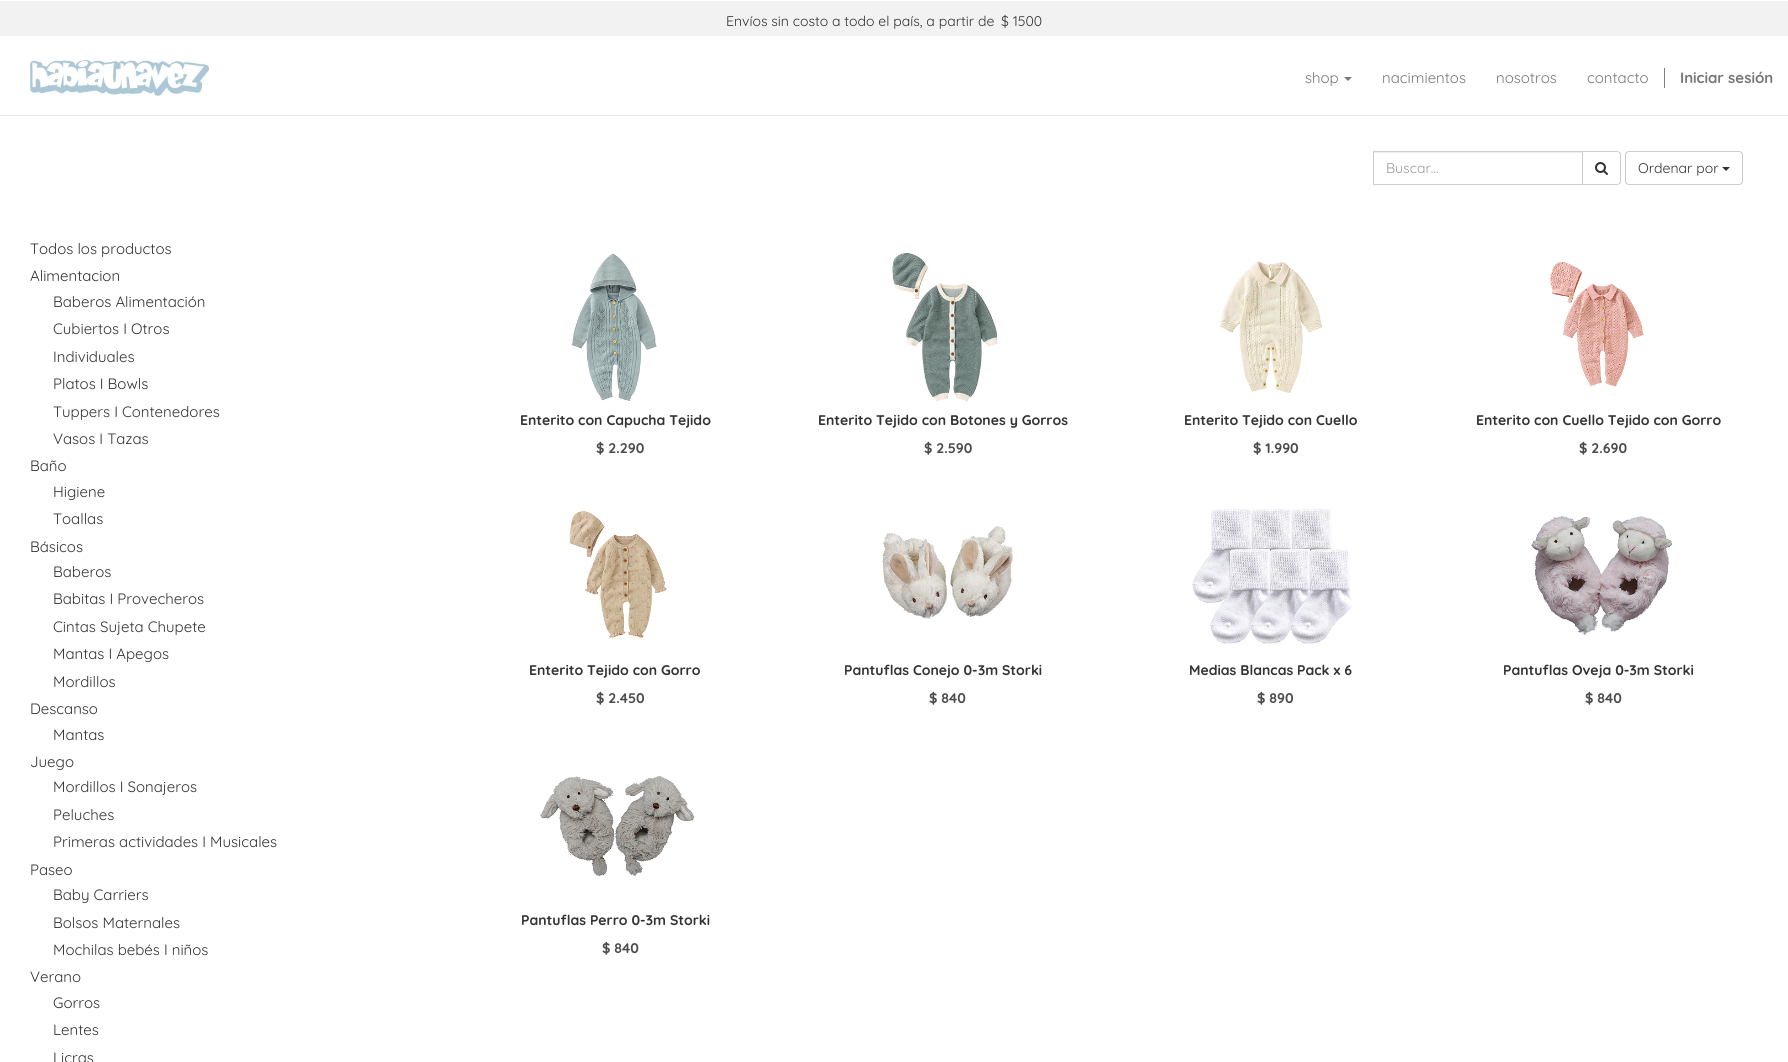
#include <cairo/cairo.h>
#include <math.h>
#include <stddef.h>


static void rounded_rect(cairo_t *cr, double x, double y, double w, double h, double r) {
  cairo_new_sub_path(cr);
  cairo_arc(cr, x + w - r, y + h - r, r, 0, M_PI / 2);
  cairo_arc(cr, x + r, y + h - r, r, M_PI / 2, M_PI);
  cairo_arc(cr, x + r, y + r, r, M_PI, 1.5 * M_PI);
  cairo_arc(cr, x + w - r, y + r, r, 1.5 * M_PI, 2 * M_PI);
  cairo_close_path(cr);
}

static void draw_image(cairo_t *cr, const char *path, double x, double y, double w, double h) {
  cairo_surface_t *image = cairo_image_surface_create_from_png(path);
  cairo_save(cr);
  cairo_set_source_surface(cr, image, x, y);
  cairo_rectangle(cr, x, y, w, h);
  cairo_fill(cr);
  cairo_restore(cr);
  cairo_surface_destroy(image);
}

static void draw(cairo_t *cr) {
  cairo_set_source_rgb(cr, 1, 1, 1);
  cairo_paint(cr);
  cairo_set_source_rgb(cr, 242 / 255.0, 242 / 255.0, 242 / 255.0);
  cairo_rectangle(cr, 0, 1, 1788, 35);
  cairo_fill(cr);
  cairo_set_source_rgb(cr, 231 / 255.0, 231 / 255.0, 231 / 255.0);
  cairo_rectangle(cr, 0, 115, 1788, 1);
  cairo_fill(cr);
  draw_image(cr, "images/1.png", 30, 60, 179, 36);
  cairo_set_source_rgb(cr, 119 / 255.0, 119 / 255.0, 119 / 255.0);
  cairo_new_path(cr);
  cairo_move_to(cr, 1344, 77);
  cairo_line_to(cr, 1352, 77);
  cairo_line_to(cr, 1348, 81);
  cairo_close_path(cr);
  cairo_fill(cr);
  cairo_set_source_rgb(cr, 128 / 255.0, 128 / 255.0, 128 / 255.0);
  cairo_rectangle(cr, 1664, 68, 1, 20);
  cairo_fill(cr);
  cairo_set_source_rgb(cr, 236 / 255.0, 236 / 255.0, 236 / 255.0);
  cairo_rectangle(cr, 1374, 152, 208, 1);
  cairo_fill(cr);
  cairo_rectangle(cr, 1373.5, 151.5, 209, 33);
  cairo_set_source_rgb(cr, 204 / 255.0, 204 / 255.0, 204 / 255.0);
  cairo_set_line_width(cr, 1);
  cairo_stroke(cr);
  cairo_set_source_rgb(cr, 1, 1, 1);
  cairo_new_path(cr);
  cairo_move_to(cr, 1582.5, 151.5);
  cairo_line_to(cr, 1617, 151.5);
  cairo_curve_to(cr, 1619, 151.5, 1620.5, 153, 1620.5, 155);
  cairo_line_to(cr, 1620.5, 181);
  cairo_curve_to(cr, 1620.5, 183, 1619, 184.5, 1617, 184.5);
  cairo_line_to(cr, 1582.5, 184.5);
  cairo_close_path(cr);
  cairo_fill_preserve(cr);
  cairo_set_source_rgb(cr, 204 / 255.0, 204 / 255.0, 204 / 255.0);
  cairo_stroke(cr);
  draw_image(cr, "images/2.png", 1595, 162, 13, 13);
  rounded_rect(cr, 1625.5, 151.5, 117, 33, 3.5);
  cairo_stroke(cr);
  cairo_set_source_rgb(cr, 51 / 255.0, 51 / 255.0, 51 / 255.0);
  cairo_new_path(cr);
  cairo_move_to(cr, 1722, 167);
  cairo_line_to(cr, 1730, 167);
  cairo_line_to(cr, 1726, 171);
  cairo_close_path(cr);
  cairo_fill(cr);
  draw_image(cr, "images/3.png", 572, 253, 85, 148);
  draw_image(cr, "images/4.png", 892, 253, 106, 149);
  draw_image(cr, "images/5.png", 1219, 261, 103, 132);
  draw_image(cr, "images/6.png", 1550, 261, 94, 126);
  draw_image(cr, "images/7.png", 569, 511, 98, 127);
  draw_image(cr, "images/8.png", 882, 526, 132, 93);
  draw_image(cr, "images/9.png", 1192, 508, 162, 137);
  draw_image(cr, "images/10.png", 1531, 515, 141, 120);
  draw_image(cr, "images/11.png", 539, 776, 156, 100);
  cairo_select_font_face(cr, "Quicksand", CAIRO_FONT_SLANT_NORMAL, CAIRO_FONT_WEIGHT_NORMAL);
  cairo_set_font_size(cr, 14);
  cairo_move_to(cr, 726, 26);
  cairo_show_text(cr, "Envíos sin costo a todo el país, a partir de");
  cairo_move_to(cr, 1001, 26);
  cairo_show_text(cr, "$ 1500");
  cairo_set_font_size(cr, 15);
  cairo_set_source_rgb(cr, 119 / 255.0, 119 / 255.0, 119 / 255.0);
  cairo_move_to(cr, 1305, 83);
  cairo_show_text(cr, "shop");
  cairo_move_to(cr, 1382, 83);
  cairo_show_text(cr, "nacimientos");
  cairo_move_to(cr, 1496, 83);
  cairo_show_text(cr, "nosotros");
  cairo_move_to(cr, 1587, 83);
  cairo_show_text(cr, "contacto");
  cairo_select_font_face(cr, "Quicksand", CAIRO_FONT_SLANT_NORMAL, CAIRO_FONT_WEIGHT_BOLD);
  cairo_move_to(cr, 1680, 83);
  cairo_show_text(cr, "Iniciar sesión");
  cairo_select_font_face(cr, "Quicksand", CAIRO_FONT_SLANT_NORMAL, CAIRO_FONT_WEIGHT_NORMAL);
  cairo_set_font_size(cr, 14);
  cairo_set_source_rgb(cr, 153 / 255.0, 153 / 255.0, 153 / 255.0);
  cairo_move_to(cr, 1386, 173);
  cairo_show_text(cr, "Buscar…");
  cairo_set_source_rgb(cr, 51 / 255.0, 51 / 255.0, 51 / 255.0);
  cairo_move_to(cr, 1638, 173);
  cairo_show_text(cr, "Ordenar por");
  cairo_set_font_size(cr, 15);
  cairo_move_to(cr, 30, 254);
  cairo_show_text(cr, "Todos los productos");
  cairo_move_to(cr, 30, 281);
  cairo_show_text(cr, "Alimentacion");
  cairo_move_to(cr, 53, 307);
  cairo_show_text(cr, "Baberos Alimentación");
  cairo_move_to(cr, 53, 334);
  cairo_show_text(cr, "Cubiertos I Otros");
  cairo_move_to(cr, 53, 362);
  cairo_show_text(cr, "Individuales");
  cairo_move_to(cr, 53, 389);
  cairo_show_text(cr, "Platos I Bowls");
  cairo_move_to(cr, 53, 417);
  cairo_show_text(cr, "Tuppers I Contenedores");
  cairo_move_to(cr, 53, 444);
  cairo_show_text(cr, "Vasos I Tazas");
  cairo_move_to(cr, 30, 471);
  cairo_show_text(cr, "Baño");
  cairo_move_to(cr, 53, 497);
  cairo_show_text(cr, "Higiene");
  cairo_move_to(cr, 53, 524);
  cairo_show_text(cr, "Toallas");
  cairo_move_to(cr, 30, 552);
  cairo_show_text(cr, "Básicos");
  cairo_move_to(cr, 53, 577);
  cairo_show_text(cr, "Baberos");
  cairo_move_to(cr, 53, 604);
  cairo_show_text(cr, "Babitas I Provecheros");
  cairo_move_to(cr, 53, 632);
  cairo_show_text(cr, "Cintas Sujeta Chupete");
  cairo_move_to(cr, 53, 659);
  cairo_show_text(cr, "Mantas I Apegos");
  cairo_move_to(cr, 53, 687);
  cairo_show_text(cr, "Mordillos");
  cairo_move_to(cr, 30, 714);
  cairo_show_text(cr, "Descanso");
  cairo_move_to(cr, 53, 740);
  cairo_show_text(cr, "Mantas");
  cairo_move_to(cr, 30, 767);
  cairo_show_text(cr, "Juego");
  cairo_move_to(cr, 53, 792);
  cairo_show_text(cr, "Mordillos I Sonajeros");
  cairo_move_to(cr, 53, 820);
  cairo_show_text(cr, "Peluches");
  cairo_move_to(cr, 53, 847);
  cairo_show_text(cr, "Primeras actividades I Musicales");
  cairo_move_to(cr, 30, 875);
  cairo_show_text(cr, "Paseo");
  cairo_move_to(cr, 53, 900);
  cairo_show_text(cr, "Baby Carriers");
  cairo_move_to(cr, 53, 928);
  cairo_show_text(cr, "Bolsos Maternales");
  cairo_move_to(cr, 53, 955);
  cairo_show_text(cr, "Mochilas bebés I niños");
  cairo_move_to(cr, 30, 982);
  cairo_show_text(cr, "Verano");
  cairo_move_to(cr, 53, 1008);
  cairo_show_text(cr, "Gorros");
  cairo_move_to(cr, 53, 1035);
  cairo_show_text(cr, "Lentes");
  cairo_move_to(cr, 53, 1063);
  cairo_show_text(cr, "Licras");
  cairo_select_font_face(cr, "Quicksand", CAIRO_FONT_SLANT_NORMAL, CAIRO_FONT_WEIGHT_BOLD);
  cairo_set_font_size(cr, 14);
  cairo_move_to(cr, 520, 425);
  cairo_show_text(cr, "Enterito con Capucha Tejido");
  cairo_set_source_rgb(cr, 76 / 255.0, 76 / 255.0, 76 / 255.0);
  cairo_move_to(cr, 596, 453);
  cairo_show_text(cr, "$ 2.290");
  cairo_set_source_rgb(cr, 51 / 255.0, 51 / 255.0, 51 / 255.0);
  cairo_move_to(cr, 818, 425);
  cairo_show_text(cr, "Enterito Tejido con Botones y Gorros");
  cairo_set_source_rgb(cr, 76 / 255.0, 76 / 255.0, 76 / 255.0);
  cairo_move_to(cr, 924, 453);
  cairo_show_text(cr, "$ 2.590");
  cairo_set_source_rgb(cr, 51 / 255.0, 51 / 255.0, 51 / 255.0);
  cairo_move_to(cr, 1184, 425);
  cairo_show_text(cr, "Enterito Tejido con Cuello");
  cairo_set_source_rgb(cr, 76 / 255.0, 76 / 255.0, 76 / 255.0);
  cairo_move_to(cr, 1253, 453);
  cairo_show_text(cr, "$ 1.990");
  cairo_set_source_rgb(cr, 51 / 255.0, 51 / 255.0, 51 / 255.0);
  cairo_move_to(cr, 1476, 425);
  cairo_show_text(cr, "Enterito con Cuello Tejido con Gorro");
  cairo_set_source_rgb(cr, 76 / 255.0, 76 / 255.0, 76 / 255.0);
  cairo_move_to(cr, 1579, 453);
  cairo_show_text(cr, "$ 2.690");
  cairo_set_source_rgb(cr, 51 / 255.0, 51 / 255.0, 51 / 255.0);
  cairo_move_to(cr, 529, 675);
  cairo_show_text(cr, "Enterito Tejido con Gorro");
  cairo_set_source_rgb(cr, 76 / 255.0, 76 / 255.0, 76 / 255.0);
  cairo_move_to(cr, 596, 703);
  cairo_show_text(cr, "$ 2.450");
  cairo_set_source_rgb(cr, 51 / 255.0, 51 / 255.0, 51 / 255.0);
  cairo_move_to(cr, 844, 675);
  cairo_show_text(cr, "Pantuflas Conejo 0-3m Storki");
  cairo_set_source_rgb(cr, 76 / 255.0, 76 / 255.0, 76 / 255.0);
  cairo_move_to(cr, 929, 703);
  cairo_show_text(cr, "$ 840");
  cairo_set_source_rgb(cr, 51 / 255.0, 51 / 255.0, 51 / 255.0);
  cairo_move_to(cr, 1189, 675);
  cairo_show_text(cr, "Medias Blancas Pack x 6");
  cairo_set_source_rgb(cr, 76 / 255.0, 76 / 255.0, 76 / 255.0);
  cairo_move_to(cr, 1257, 703);
  cairo_show_text(cr, "$ 890");
  cairo_set_source_rgb(cr, 51 / 255.0, 51 / 255.0, 51 / 255.0);
  cairo_move_to(cr, 1503, 675);
  cairo_show_text(cr, "Pantuflas Oveja 0-3m Storki");
  cairo_set_source_rgb(cr, 76 / 255.0, 76 / 255.0, 76 / 255.0);
  cairo_move_to(cr, 1585, 703);
  cairo_show_text(cr, "$ 840");
  cairo_set_source_rgb(cr, 51 / 255.0, 51 / 255.0, 51 / 255.0);
  cairo_move_to(cr, 521, 925);
  cairo_show_text(cr, "Pantuflas Perro 0-3m Storki");
  cairo_set_source_rgb(cr, 76 / 255.0, 76 / 255.0, 76 / 255.0);
  cairo_move_to(cr, 602, 953);
  cairo_show_text(cr, "$ 840");
}

int main(void) {
  cairo_surface_t *surface = cairo_image_surface_create(CAIRO_FORMAT_RGB24, 1788, 1062);
  cairo_t *cr = cairo_create(surface);
  cairo_font_options_t *options = cairo_font_options_create();
  cairo_font_options_set_hint_metrics(options, CAIRO_HINT_METRICS_OFF);
  cairo_font_options_set_hint_style(options, CAIRO_HINT_STYLE_NONE);
  cairo_set_font_options(cr, options);
  cairo_set_miter_limit(cr, 4);
  draw(cr);
  cairo_surface_write_to_png(surface, "out.png");
  cairo_font_options_destroy(options);
  cairo_destroy(cr);
  cairo_surface_destroy(surface);
  return 0;
}
